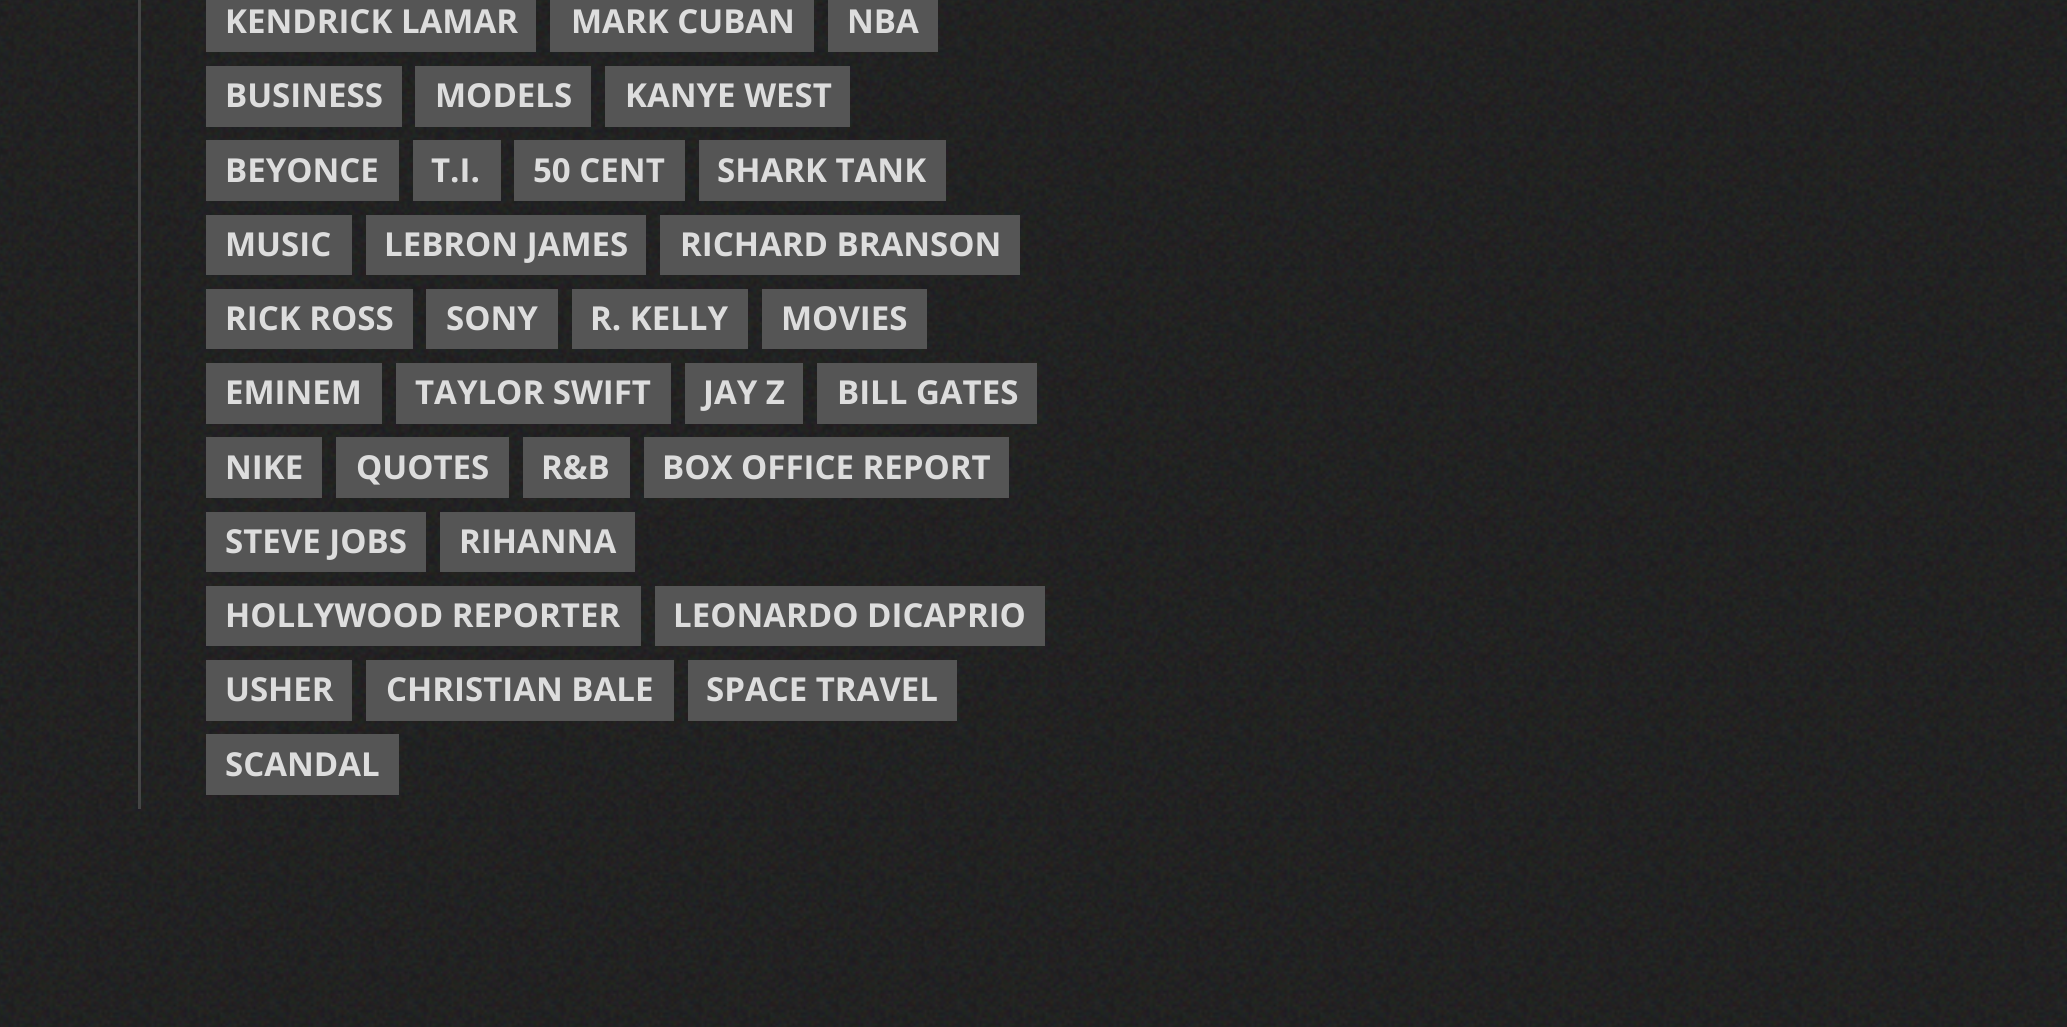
#include <cairo/cairo.h>
#include <math.h>
#include <stddef.h>


static void draw_image(cairo_t *cr, const char *path, double x, double y, double w, double h) {
  cairo_surface_t *image = cairo_image_surface_create_from_png(path);
  cairo_save(cr);
  cairo_set_source_surface(cr, image, x, y);
  cairo_rectangle(cr, x, y, w, h);
  cairo_fill(cr);
  cairo_restore(cr);
  cairo_surface_destroy(image);
}

static void draw(cairo_t *cr) {
  cairo_set_source_rgb(cr, 1, 1, 1);
  cairo_paint(cr);
  draw_image(cr, "images/1.png", 0, 0, 2067, 1027);
  cairo_set_source_rgb(cr, 68 / 255.0, 68 / 255.0, 68 / 255.0);
  cairo_rectangle(cr, 138, 0, 3, 809);
  cairo_fill(cr);
  cairo_set_source_rgb(cr, 85 / 255.0, 85 / 255.0, 85 / 255.0);
  cairo_rectangle(cr, 206, 0, 330, 52);
  cairo_fill(cr);
  cairo_rectangle(cr, 550, 0, 264, 52);
  cairo_fill(cr);
  cairo_rectangle(cr, 828, 0, 110, 52);
  cairo_fill(cr);
  cairo_rectangle(cr, 206, 66, 196, 61);
  cairo_fill(cr);
  cairo_rectangle(cr, 415, 66, 176, 61);
  cairo_fill(cr);
  cairo_rectangle(cr, 605, 66, 245, 61);
  cairo_fill(cr);
  cairo_rectangle(cr, 206, 140, 193, 61);
  cairo_fill(cr);
  cairo_rectangle(cr, 413, 140, 88, 61);
  cairo_fill(cr);
  cairo_rectangle(cr, 514, 140, 171, 61);
  cairo_fill(cr);
  cairo_rectangle(cr, 699, 140, 247, 61);
  cairo_fill(cr);
  cairo_rectangle(cr, 206, 215, 146, 60);
  cairo_fill(cr);
  cairo_rectangle(cr, 366, 215, 280, 60);
  cairo_fill(cr);
  cairo_rectangle(cr, 660, 215, 360, 60);
  cairo_fill(cr);
  cairo_rectangle(cr, 206, 289, 207, 60);
  cairo_fill(cr);
  cairo_rectangle(cr, 426, 289, 132, 60);
  cairo_fill(cr);
  cairo_rectangle(cr, 572, 289, 176, 60);
  cairo_fill(cr);
  cairo_rectangle(cr, 762, 289, 165, 60);
  cairo_fill(cr);
  cairo_rectangle(cr, 206, 363, 176, 61);
  cairo_fill(cr);
  cairo_rectangle(cr, 396, 363, 275, 61);
  cairo_fill(cr);
  cairo_rectangle(cr, 685, 363, 118, 61);
  cairo_fill(cr);
  cairo_rectangle(cr, 817, 363, 220, 61);
  cairo_fill(cr);
  cairo_rectangle(cr, 206, 437, 116, 61);
  cairo_fill(cr);
  cairo_rectangle(cr, 336, 437, 173, 61);
  cairo_fill(cr);
  cairo_rectangle(cr, 523, 437, 107, 61);
  cairo_fill(cr);
  cairo_rectangle(cr, 644, 437, 365, 61);
  cairo_fill(cr);
  cairo_rectangle(cr, 206, 512, 220, 60);
  cairo_fill(cr);
  cairo_rectangle(cr, 440, 512, 195, 60);
  cairo_fill(cr);
  cairo_rectangle(cr, 206, 586, 435, 60);
  cairo_fill(cr);
  cairo_rectangle(cr, 655, 586, 390, 60);
  cairo_fill(cr);
  cairo_rectangle(cr, 206, 660, 146, 61);
  cairo_fill(cr);
  cairo_rectangle(cr, 366, 660, 308, 61);
  cairo_fill(cr);
  cairo_rectangle(cr, 688, 660, 269, 61);
  cairo_fill(cr);
  cairo_rectangle(cr, 206, 734, 193, 61);
  cairo_fill(cr);
  cairo_select_font_face(cr, "Open Sans", CAIRO_FONT_SLANT_NORMAL, CAIRO_FONT_WEIGHT_BOLD);
  cairo_set_font_size(cr, 33);
  cairo_set_source_rgb(cr, 221 / 255.0, 221 / 255.0, 221 / 255.0);
  cairo_move_to(cr, 225, 33);
  cairo_show_text(cr, "KENDRICK LAMAR");
  cairo_move_to(cr, 571, 33);
  cairo_show_text(cr, "MARK CUBAN");
  cairo_move_to(cr, 847, 33);
  cairo_show_text(cr, "NBA");
  cairo_move_to(cr, 225, 107);
  cairo_show_text(cr, "BUSINESS");
  cairo_move_to(cr, 435, 107);
  cairo_show_text(cr, "MODELS");
  cairo_move_to(cr, 625, 107);
  cairo_show_text(cr, "KANYE WEST");
  cairo_move_to(cr, 225, 182);
  cairo_show_text(cr, "BEYONCE");
  cairo_move_to(cr, 431, 182);
  cairo_show_text(cr, "T.I.");
  cairo_move_to(cr, 533, 182);
  cairo_show_text(cr, "50 CENT");
  cairo_move_to(cr, 717, 182);
  cairo_show_text(cr, "SHARK TANK");
  cairo_move_to(cr, 225, 256);
  cairo_show_text(cr, "MUSIC");
  cairo_move_to(cr, 384, 256);
  cairo_show_text(cr, "LEBRON JAMES");
  cairo_move_to(cr, 680, 256);
  cairo_show_text(cr, "RICHARD BRANSON");
  cairo_move_to(cr, 225, 330);
  cairo_show_text(cr, "RICK ROSS");
  cairo_move_to(cr, 446, 330);
  cairo_show_text(cr, "SONY");
  cairo_move_to(cr, 590, 330);
  cairo_show_text(cr, "R. KELLY");
  cairo_move_to(cr, 781, 330);
  cairo_show_text(cr, "MOVIES");
  cairo_move_to(cr, 225, 404);
  cairo_show_text(cr, "EMINEM");
  cairo_move_to(cr, 415, 404);
  cairo_show_text(cr, "TAYLOR SWIFT");
  cairo_move_to(cr, 703, 404);
  cairo_show_text(cr, "JAY Z");
  cairo_move_to(cr, 837, 404);
  cairo_show_text(cr, "BILL GATES");
  cairo_move_to(cr, 225, 479);
  cairo_show_text(cr, "NIKE");
  cairo_move_to(cr, 356, 479);
  cairo_show_text(cr, "QUOTES");
  cairo_move_to(cr, 541, 479);
  cairo_show_text(cr, "R&B");
  cairo_move_to(cr, 662, 479);
  cairo_show_text(cr, "BOX OFFICE REPORT");
  cairo_move_to(cr, 225, 553);
  cairo_show_text(cr, "STEVE JOBS");
  cairo_move_to(cr, 459, 553);
  cairo_show_text(cr, "RIHANNA");
  cairo_move_to(cr, 225, 627);
  cairo_show_text(cr, "HOLLYWOOD REPORTER");
  cairo_move_to(cr, 673, 627);
  cairo_show_text(cr, "LEONARDO DICAPRIO");
  cairo_move_to(cr, 225, 701);
  cairo_show_text(cr, "USHER");
  cairo_move_to(cr, 386, 701);
  cairo_show_text(cr, "CHRISTIAN BALE");
  cairo_move_to(cr, 706, 701);
  cairo_show_text(cr, "SPACE TRAVEL");
  cairo_move_to(cr, 225, 776);
  cairo_show_text(cr, "SCANDAL");
}

int main(void) {
  cairo_surface_t *surface = cairo_image_surface_create(CAIRO_FORMAT_RGB24, 2067, 1027);
  cairo_t *cr = cairo_create(surface);
  cairo_font_options_t *options = cairo_font_options_create();
  cairo_font_options_set_hint_metrics(options, CAIRO_HINT_METRICS_OFF);
  cairo_font_options_set_hint_style(options, CAIRO_HINT_STYLE_NONE);
  cairo_set_font_options(cr, options);
  cairo_set_miter_limit(cr, 4);
  draw(cr);
  cairo_surface_write_to_png(surface, "out.png");
  cairo_font_options_destroy(options);
  cairo_destroy(cr);
  cairo_surface_destroy(surface);
  return 0;
}
